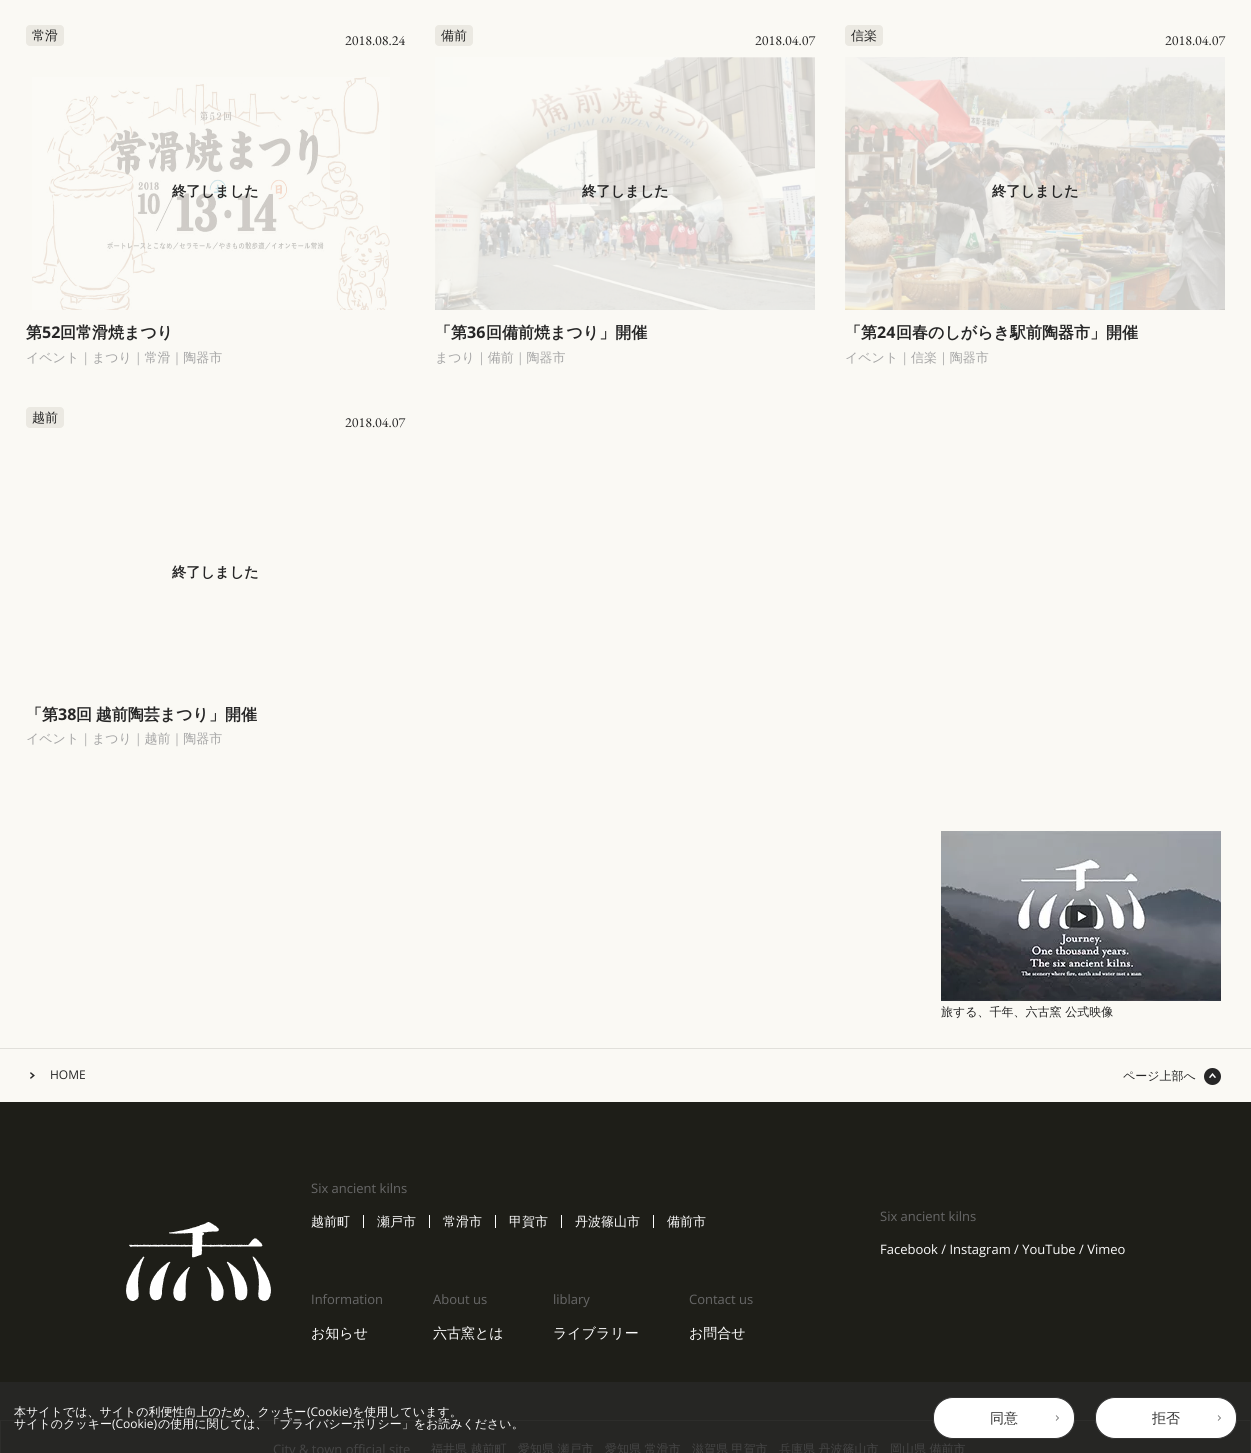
#include <cairo/cairo.h>
#include <math.h>
#include <stddef.h>


static void draw_spaced(cairo_t *cr, double x, double y, const char *s, double letter, double word) {
  cairo_move_to(cr, x, y);
  while (*s) {
    char ch[5] = {0};
    int n = 0;
    do ch[n++] = *s++; while ((*s & 0xC0) == 0x80);
    cairo_show_text(cr, ch);
    cairo_rel_move_to(cr, letter + word * (*ch == ' '), 0);
  }
}

static void rounded_rect(cairo_t *cr, double x, double y, double w, double h, double r) {
  cairo_new_sub_path(cr);
  cairo_arc(cr, x + w - r, y + h - r, r, 0, M_PI / 2);
  cairo_arc(cr, x + r, y + h - r, r, M_PI / 2, M_PI);
  cairo_arc(cr, x + r, y + r, r, M_PI, 1.5 * M_PI);
  cairo_arc(cr, x + w - r, y + r, r, 1.5 * M_PI, 2 * M_PI);
  cairo_close_path(cr);
}

static void draw_image(cairo_t *cr, const char *path, double x, double y, double w, double h) {
  cairo_surface_t *image = cairo_image_surface_create_from_png(path);
  cairo_save(cr);
  cairo_set_source_surface(cr, image, x, y);
  cairo_rectangle(cr, x, y, w, h);
  cairo_fill(cr);
  cairo_restore(cr);
  cairo_surface_destroy(image);
}

static void draw(cairo_t *cr) {
  cairo_set_source_rgb(cr, 250 / 255.0, 249 / 255.0, 244 / 255.0);
  cairo_paint(cr);
  cairo_set_source_rgb(cr, 235 / 255.0, 233 / 255.0, 226 / 255.0);
  rounded_rect(cr, 26, 25, 38, 21, 4);
  cairo_fill(cr);
  draw_image(cr, "images/1.png", 32, 77, 358, 233);
  rounded_rect(cr, 435, 25, 38, 21, 4);
  cairo_fill(cr);
  draw_image(cr, "images/2.png", 435, 57, 380, 253);
  rounded_rect(cr, 845, 25, 38, 21, 4);
  cairo_fill(cr);
  draw_image(cr, "images/3.png", 845, 57, 380, 253);
  rounded_rect(cr, 26, 407, 38, 21, 4);
  cairo_fill(cr);
  draw_image(cr, "images/4.png", 941, 831, 280, 170);
  cairo_set_source_rgb(cr, 225 / 255.0, 224 / 255.0, 219 / 255.0);
  cairo_rectangle(cr, 0, 1048, 1251, 1);
  cairo_fill(cr);
  draw_image(cr, "images/5.png", 30, 1072, 5, 7);
  draw_image(cr, "images/6.png", 1204, 1068, 17, 17);
  cairo_set_source_rgb(cr, 30 / 255.0, 30 / 255.0, 24 / 255.0);
  cairo_rectangle(cr, 0, 1102, 1251, 280);
  cairo_fill(cr);
  cairo_set_source_rgb(cr, 38 / 255.0, 38 / 255.0, 36 / 255.0);
  cairo_rectangle(cr, 0, 1382, 1251, 38);
  cairo_fill(cr);
  draw_image(cr, "images/7.png", 126, 1222, 145, 79);
  cairo_set_source_rgb(cr, 252 / 255.0, 252 / 255.0, 252 / 255.0);
  cairo_rectangle(cr, 363, 1215, 1, 13);
  cairo_fill(cr);
  cairo_rectangle(cr, 429, 1215, 1, 13);
  cairo_fill(cr);
  cairo_rectangle(cr, 495, 1215, 1, 13);
  cairo_fill(cr);
  cairo_rectangle(cr, 561, 1215, 1, 13);
  cairo_fill(cr);
  cairo_rectangle(cr, 653, 1215, 1, 13);
  cairo_fill(cr);
  cairo_set_source_rgb(cr, 38 / 255.0, 38 / 255.0, 36 / 255.0);
  cairo_rectangle(cr, 0.5, 1420.5, 1250, 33);
  cairo_fill_preserve(cr);
  cairo_set_source_rgb(cr, 45 / 255.0, 45 / 255.0, 43 / 255.0);
  cairo_set_line_width(cr, 1);
  cairo_stroke(cr);
  cairo_set_source_rgb(cr, 1, 1, 1);
  rounded_rect(cr, 933.5, 1397.5, 141, 41, 19.5);
  cairo_fill_preserve(cr);
  cairo_set_source_rgb(cr, 51 / 255.0, 51 / 255.0, 51 / 255.0);
  cairo_stroke(cr);
  cairo_new_path(cr);
  cairo_move_to(cr, 1056, 1415.5);
  cairo_line_to(cr, 1058.5, 1418);
  cairo_line_to(cr, 1056, 1420.5);
  cairo_set_line_width(cr, 0.6);
  cairo_stroke(cr);
  cairo_set_source_rgb(cr, 1, 1, 1);
  rounded_rect(cr, 1095.5, 1397.5, 141, 41, 19.5);
  cairo_fill_preserve(cr);
  cairo_set_source_rgb(cr, 51 / 255.0, 51 / 255.0, 51 / 255.0);
  cairo_set_line_width(cr, 1);
  cairo_stroke(cr);
  cairo_new_path(cr);
  cairo_move_to(cr, 1218, 1415.5);
  cairo_line_to(cr, 1220.5, 1418);
  cairo_line_to(cr, 1218, 1420.5);
  cairo_set_line_width(cr, 0.6);
  cairo_stroke(cr);
  cairo_select_font_face(cr, "WenQuanYi Zen Hei Medium", CAIRO_FONT_SLANT_NORMAL, CAIRO_FONT_WEIGHT_NORMAL);
  cairo_set_font_size(cr, 13);
  cairo_set_source_rgb(cr, 38 / 255.0, 38 / 255.0, 38 / 255.0);
  cairo_move_to(cr, 32, 40);
  cairo_show_text(cr, "常滑");
  cairo_select_font_face(cr, "EB Garamond", CAIRO_FONT_SLANT_NORMAL, CAIRO_FONT_WEIGHT_NORMAL);
  cairo_set_font_size(cr, 14);
  cairo_move_to(cr, 345, 45);
  cairo_show_text(cr, "2018.08.24");
  cairo_select_font_face(cr, "WenQuanYi Zen Hei", CAIRO_FONT_SLANT_NORMAL, CAIRO_FONT_WEIGHT_BOLD);
  cairo_set_font_size(cr, 14.25);
  cairo_move_to(cr, 172, 196);
  cairo_show_text(cr, "終了しました");
  cairo_set_font_size(cr, 16);
  cairo_move_to(cr, 26, 338);
  cairo_show_text(cr, "第");
  cairo_select_font_face(cr, "Open Sans", CAIRO_FONT_SLANT_NORMAL, CAIRO_FONT_WEIGHT_BOLD);
  cairo_move_to(cr, 42, 338);
  cairo_show_text(cr, "52");
  cairo_select_font_face(cr, "WenQuanYi Zen Hei", CAIRO_FONT_SLANT_NORMAL, CAIRO_FONT_WEIGHT_BOLD);
  cairo_move_to(cr, 60, 338);
  cairo_show_text(cr, "回常滑焼まつり");
  cairo_select_font_face(cr, "WenQuanYi Zen Hei Medium", CAIRO_FONT_SLANT_NORMAL, CAIRO_FONT_WEIGHT_NORMAL);
  cairo_set_font_size(cr, 13);
  cairo_set_source_rgb(cr, 166 / 255.0, 166 / 255.0, 166 / 255.0);
  cairo_move_to(cr, 26, 362);
  cairo_show_text(cr, "イベント｜まつり｜常滑｜陶器市");
  cairo_set_source_rgb(cr, 38 / 255.0, 38 / 255.0, 38 / 255.0);
  cairo_move_to(cr, 441, 40);
  cairo_show_text(cr, "備前");
  cairo_select_font_face(cr, "EB Garamond", CAIRO_FONT_SLANT_NORMAL, CAIRO_FONT_WEIGHT_NORMAL);
  cairo_set_font_size(cr, 14);
  cairo_move_to(cr, 755, 45);
  cairo_show_text(cr, "2018.04.07");
  cairo_select_font_face(cr, "WenQuanYi Zen Hei", CAIRO_FONT_SLANT_NORMAL, CAIRO_FONT_WEIGHT_BOLD);
  cairo_set_font_size(cr, 14.25);
  cairo_move_to(cr, 582, 196);
  cairo_show_text(cr, "終了しました");
  cairo_set_font_size(cr, 16);
  cairo_move_to(cr, 435, 338);
  cairo_show_text(cr, "「第");
  cairo_select_font_face(cr, "Open Sans", CAIRO_FONT_SLANT_NORMAL, CAIRO_FONT_WEIGHT_BOLD);
  cairo_move_to(cr, 467, 338);
  cairo_show_text(cr, "36");
  cairo_select_font_face(cr, "WenQuanYi Zen Hei", CAIRO_FONT_SLANT_NORMAL, CAIRO_FONT_WEIGHT_BOLD);
  cairo_move_to(cr, 486, 338);
  cairo_show_text(cr, "回備前焼まつり」開催");
  cairo_select_font_face(cr, "WenQuanYi Zen Hei Medium", CAIRO_FONT_SLANT_NORMAL, CAIRO_FONT_WEIGHT_NORMAL);
  cairo_set_font_size(cr, 13);
  cairo_set_source_rgb(cr, 166 / 255.0, 166 / 255.0, 166 / 255.0);
  cairo_move_to(cr, 435, 362);
  cairo_show_text(cr, "まつり｜備前｜陶器市");
  cairo_set_source_rgb(cr, 38 / 255.0, 38 / 255.0, 38 / 255.0);
  cairo_move_to(cr, 851, 40);
  cairo_show_text(cr, "信楽");
  cairo_select_font_face(cr, "EB Garamond", CAIRO_FONT_SLANT_NORMAL, CAIRO_FONT_WEIGHT_NORMAL);
  cairo_set_font_size(cr, 14);
  cairo_move_to(cr, 1165, 45);
  cairo_show_text(cr, "2018.04.07");
  cairo_select_font_face(cr, "WenQuanYi Zen Hei", CAIRO_FONT_SLANT_NORMAL, CAIRO_FONT_WEIGHT_BOLD);
  cairo_set_font_size(cr, 14.25);
  cairo_move_to(cr, 992, 196);
  cairo_show_text(cr, "終了しました");
  cairo_set_font_size(cr, 16);
  cairo_move_to(cr, 845, 338);
  cairo_show_text(cr, "「第");
  cairo_select_font_face(cr, "Open Sans", CAIRO_FONT_SLANT_NORMAL, CAIRO_FONT_WEIGHT_BOLD);
  cairo_move_to(cr, 877, 338);
  cairo_show_text(cr, "24");
  cairo_select_font_face(cr, "WenQuanYi Zen Hei", CAIRO_FONT_SLANT_NORMAL, CAIRO_FONT_WEIGHT_BOLD);
  cairo_move_to(cr, 896, 338);
  cairo_show_text(cr, "回春のしがらき駅前陶器市」開催");
  cairo_select_font_face(cr, "WenQuanYi Zen Hei Medium", CAIRO_FONT_SLANT_NORMAL, CAIRO_FONT_WEIGHT_NORMAL);
  cairo_set_font_size(cr, 13);
  cairo_set_source_rgb(cr, 166 / 255.0, 166 / 255.0, 166 / 255.0);
  cairo_move_to(cr, 845, 362);
  cairo_show_text(cr, "イベント｜信楽｜陶器市");
  cairo_set_source_rgb(cr, 38 / 255.0, 38 / 255.0, 38 / 255.0);
  cairo_move_to(cr, 32, 422);
  cairo_show_text(cr, "越前");
  cairo_select_font_face(cr, "EB Garamond", CAIRO_FONT_SLANT_NORMAL, CAIRO_FONT_WEIGHT_NORMAL);
  cairo_set_font_size(cr, 14);
  cairo_move_to(cr, 345, 427);
  cairo_show_text(cr, "2018.04.07");
  cairo_select_font_face(cr, "WenQuanYi Zen Hei", CAIRO_FONT_SLANT_NORMAL, CAIRO_FONT_WEIGHT_BOLD);
  cairo_set_font_size(cr, 14.25);
  cairo_move_to(cr, 172, 577);
  cairo_show_text(cr, "終了しました");
  cairo_set_font_size(cr, 16);
  cairo_move_to(cr, 26, 720);
  cairo_show_text(cr, "「第");
  cairo_select_font_face(cr, "Open Sans", CAIRO_FONT_SLANT_NORMAL, CAIRO_FONT_WEIGHT_BOLD);
  cairo_move_to(cr, 58, 720);
  cairo_show_text(cr, "38");
  cairo_select_font_face(cr, "WenQuanYi Zen Hei", CAIRO_FONT_SLANT_NORMAL, CAIRO_FONT_WEIGHT_BOLD);
  draw_spaced(cr, 76, 720, "回 越前陶芸まつり」開催", 0, -1);
  cairo_select_font_face(cr, "WenQuanYi Zen Hei Medium", CAIRO_FONT_SLANT_NORMAL, CAIRO_FONT_WEIGHT_NORMAL);
  cairo_set_font_size(cr, 13);
  cairo_set_source_rgb(cr, 166 / 255.0, 166 / 255.0, 166 / 255.0);
  cairo_move_to(cr, 26, 743);
  cairo_show_text(cr, "イベント｜まつり｜越前｜陶器市");
  cairo_set_font_size(cr, 12);
  cairo_set_source_rgb(cr, 38 / 255.0, 38 / 255.0, 38 / 255.0);
  cairo_move_to(cr, 941, 1016);
  cairo_show_text(cr, "旅する、千年、六古窯 公式映像");
  cairo_select_font_face(cr, "Open Sans", CAIRO_FONT_SLANT_NORMAL, CAIRO_FONT_WEIGHT_NORMAL);
  cairo_move_to(cr, 50, 1079);
  cairo_show_text(cr, "HOME");
  cairo_select_font_face(cr, "WenQuanYi Zen Hei Medium", CAIRO_FONT_SLANT_NORMAL, CAIRO_FONT_WEIGHT_NORMAL);
  cairo_move_to(cr, 1123, 1080);
  cairo_show_text(cr, "ページ上部へ");
  cairo_select_font_face(cr, "Open Sans", CAIRO_FONT_SLANT_NORMAL, CAIRO_FONT_WEIGHT_NORMAL);
  cairo_set_font_size(cr, 13);
  cairo_set_source_rgb(cr, 104 / 255.0, 104 / 255.0, 104 / 255.0);
  cairo_move_to(cr, 311, 1193);
  cairo_show_text(cr, "Six ancient kilns");
  cairo_select_font_face(cr, "WenQuanYi Zen Hei Medium", CAIRO_FONT_SLANT_NORMAL, CAIRO_FONT_WEIGHT_NORMAL);
  cairo_set_source_rgb(cr, 252 / 255.0, 252 / 255.0, 252 / 255.0);
  cairo_move_to(cr, 311, 1226);
  cairo_show_text(cr, "越前町");
  cairo_move_to(cr, 377, 1226);
  cairo_show_text(cr, "瀬戸市");
  cairo_move_to(cr, 443, 1226);
  cairo_show_text(cr, "常滑市");
  cairo_move_to(cr, 509, 1226);
  cairo_show_text(cr, "甲賀市");
  cairo_move_to(cr, 575, 1226);
  cairo_show_text(cr, "丹波篠山市");
  cairo_move_to(cr, 667, 1226);
  cairo_show_text(cr, "備前市");
  cairo_select_font_face(cr, "Open Sans", CAIRO_FONT_SLANT_NORMAL, CAIRO_FONT_WEIGHT_NORMAL);
  cairo_set_source_rgb(cr, 104 / 255.0, 104 / 255.0, 104 / 255.0);
  cairo_move_to(cr, 311, 1304);
  cairo_show_text(cr, "Information");
  cairo_select_font_face(cr, "WenQuanYi Zen Hei Medium", CAIRO_FONT_SLANT_NORMAL, CAIRO_FONT_WEIGHT_NORMAL);
  cairo_set_font_size(cr, 14);
  cairo_set_source_rgb(cr, 252 / 255.0, 252 / 255.0, 252 / 255.0);
  cairo_move_to(cr, 311, 1338);
  cairo_show_text(cr, "お知らせ");
  cairo_select_font_face(cr, "Open Sans", CAIRO_FONT_SLANT_NORMAL, CAIRO_FONT_WEIGHT_NORMAL);
  cairo_set_font_size(cr, 13);
  cairo_set_source_rgb(cr, 104 / 255.0, 104 / 255.0, 104 / 255.0);
  cairo_move_to(cr, 433, 1304);
  cairo_show_text(cr, "About us");
  cairo_select_font_face(cr, "WenQuanYi Zen Hei Medium", CAIRO_FONT_SLANT_NORMAL, CAIRO_FONT_WEIGHT_NORMAL);
  cairo_set_font_size(cr, 14);
  cairo_set_source_rgb(cr, 252 / 255.0, 252 / 255.0, 252 / 255.0);
  cairo_move_to(cr, 433, 1338);
  cairo_show_text(cr, "六古窯とは");
  cairo_select_font_face(cr, "Open Sans", CAIRO_FONT_SLANT_NORMAL, CAIRO_FONT_WEIGHT_NORMAL);
  cairo_set_font_size(cr, 13);
  cairo_set_source_rgb(cr, 104 / 255.0, 104 / 255.0, 104 / 255.0);
  cairo_move_to(cr, 553, 1304);
  cairo_show_text(cr, "liblary");
  cairo_select_font_face(cr, "WenQuanYi Zen Hei Medium", CAIRO_FONT_SLANT_NORMAL, CAIRO_FONT_WEIGHT_NORMAL);
  cairo_set_font_size(cr, 14);
  cairo_set_source_rgb(cr, 252 / 255.0, 252 / 255.0, 252 / 255.0);
  cairo_move_to(cr, 553, 1338);
  cairo_show_text(cr, "ライブラリー");
  cairo_select_font_face(cr, "Open Sans", CAIRO_FONT_SLANT_NORMAL, CAIRO_FONT_WEIGHT_NORMAL);
  cairo_set_font_size(cr, 13);
  cairo_set_source_rgb(cr, 104 / 255.0, 104 / 255.0, 104 / 255.0);
  cairo_move_to(cr, 689, 1304);
  cairo_show_text(cr, "Contact us");
  cairo_select_font_face(cr, "WenQuanYi Zen Hei Medium", CAIRO_FONT_SLANT_NORMAL, CAIRO_FONT_WEIGHT_NORMAL);
  cairo_set_font_size(cr, 14);
  cairo_set_source_rgb(cr, 252 / 255.0, 252 / 255.0, 252 / 255.0);
  cairo_move_to(cr, 689, 1338);
  cairo_show_text(cr, "お問合せ");
  cairo_select_font_face(cr, "Open Sans", CAIRO_FONT_SLANT_NORMAL, CAIRO_FONT_WEIGHT_NORMAL);
  cairo_set_font_size(cr, 13);
  cairo_set_source_rgb(cr, 104 / 255.0, 104 / 255.0, 104 / 255.0);
  cairo_move_to(cr, 880, 1221);
  cairo_show_text(cr, "Six ancient kilns");
  cairo_set_source_rgb(cr, 252 / 255.0, 252 / 255.0, 252 / 255.0);
  cairo_move_to(cr, 880, 1254);
  cairo_show_text(cr, "Facebook / Instagram / YouTube / Vimeo");
  cairo_set_source_rgb(cr, 69 / 255.0, 69 / 255.0, 69 / 255.0);
  cairo_move_to(cr, 273, 1454);
  cairo_show_text(cr, "City & town official site");
  cairo_select_font_face(cr, "WenQuanYi Zen Hei Medium", CAIRO_FONT_SLANT_NORMAL, CAIRO_FONT_WEIGHT_NORMAL);
  cairo_set_font_size(cr, 12);
  cairo_move_to(cr, 431, 1453);
  cairo_show_text(cr, "福井県 越前町");
  cairo_move_to(cr, 518, 1453);
  cairo_show_text(cr, "愛知県 瀬戸市");
  cairo_move_to(cr, 605, 1453);
  cairo_show_text(cr, "愛知県 常滑市");
  cairo_move_to(cr, 692, 1453);
  cairo_show_text(cr, "滋賀県 甲賀市");
  cairo_move_to(cr, 779, 1453);
  cairo_show_text(cr, "兵庫県 丹波篠山市");
  cairo_move_to(cr, 890, 1453);
  cairo_show_text(cr, "岡山県 備前市");
  cairo_set_source_rgb(cr, 252 / 255.0, 252 / 255.0, 252 / 255.0);
  cairo_move_to(cr, 14, 1416);
  cairo_show_text(cr, "本サイトでは、サイトの利便性向上のため、クッキー");
  cairo_select_font_face(cr, "Open Sans", CAIRO_FONT_SLANT_NORMAL, CAIRO_FONT_WEIGHT_NORMAL);
  cairo_move_to(cr, 307, 1416);
  cairo_show_text(cr, "(Cookie)");
  cairo_select_font_face(cr, "WenQuanYi Zen Hei Medium", CAIRO_FONT_SLANT_NORMAL, CAIRO_FONT_WEIGHT_NORMAL);
  cairo_move_to(cr, 352, 1416);
  cairo_show_text(cr, "を使用しています。");
  cairo_move_to(cr, 14, 1428);
  cairo_show_text(cr, "サイトのクッキー");
  cairo_select_font_face(cr, "Open Sans", CAIRO_FONT_SLANT_NORMAL, CAIRO_FONT_WEIGHT_NORMAL);
  cairo_move_to(cr, 112, 1428);
  cairo_show_text(cr, "(Cookie)");
  cairo_select_font_face(cr, "WenQuanYi Zen Hei Medium", CAIRO_FONT_SLANT_NORMAL, CAIRO_FONT_WEIGHT_NORMAL);
  cairo_move_to(cr, 158, 1428);
  cairo_show_text(cr, "の使用に関しては、「プライバシーポリシー」をお読みください。");
  cairo_set_font_size(cr, 14);
  cairo_set_source_rgb(cr, 51 / 255.0, 51 / 255.0, 51 / 255.0);
  cairo_move_to(cr, 990, 1423);
  cairo_show_text(cr, "同意");
  cairo_move_to(cr, 1152, 1423);
  cairo_show_text(cr, "拒否");
}

int main(void) {
  cairo_surface_t *surface = cairo_image_surface_create(CAIRO_FORMAT_RGB24, 1251, 1453);
  cairo_t *cr = cairo_create(surface);
  cairo_font_options_t *options = cairo_font_options_create();
  cairo_font_options_set_hint_metrics(options, CAIRO_HINT_METRICS_OFF);
  cairo_font_options_set_hint_style(options, CAIRO_HINT_STYLE_NONE);
  cairo_set_font_options(cr, options);
  cairo_set_miter_limit(cr, 4);
  draw(cr);
  cairo_surface_write_to_png(surface, "out.png");
  cairo_font_options_destroy(options);
  cairo_destroy(cr);
  cairo_surface_destroy(surface);
  return 0;
}
